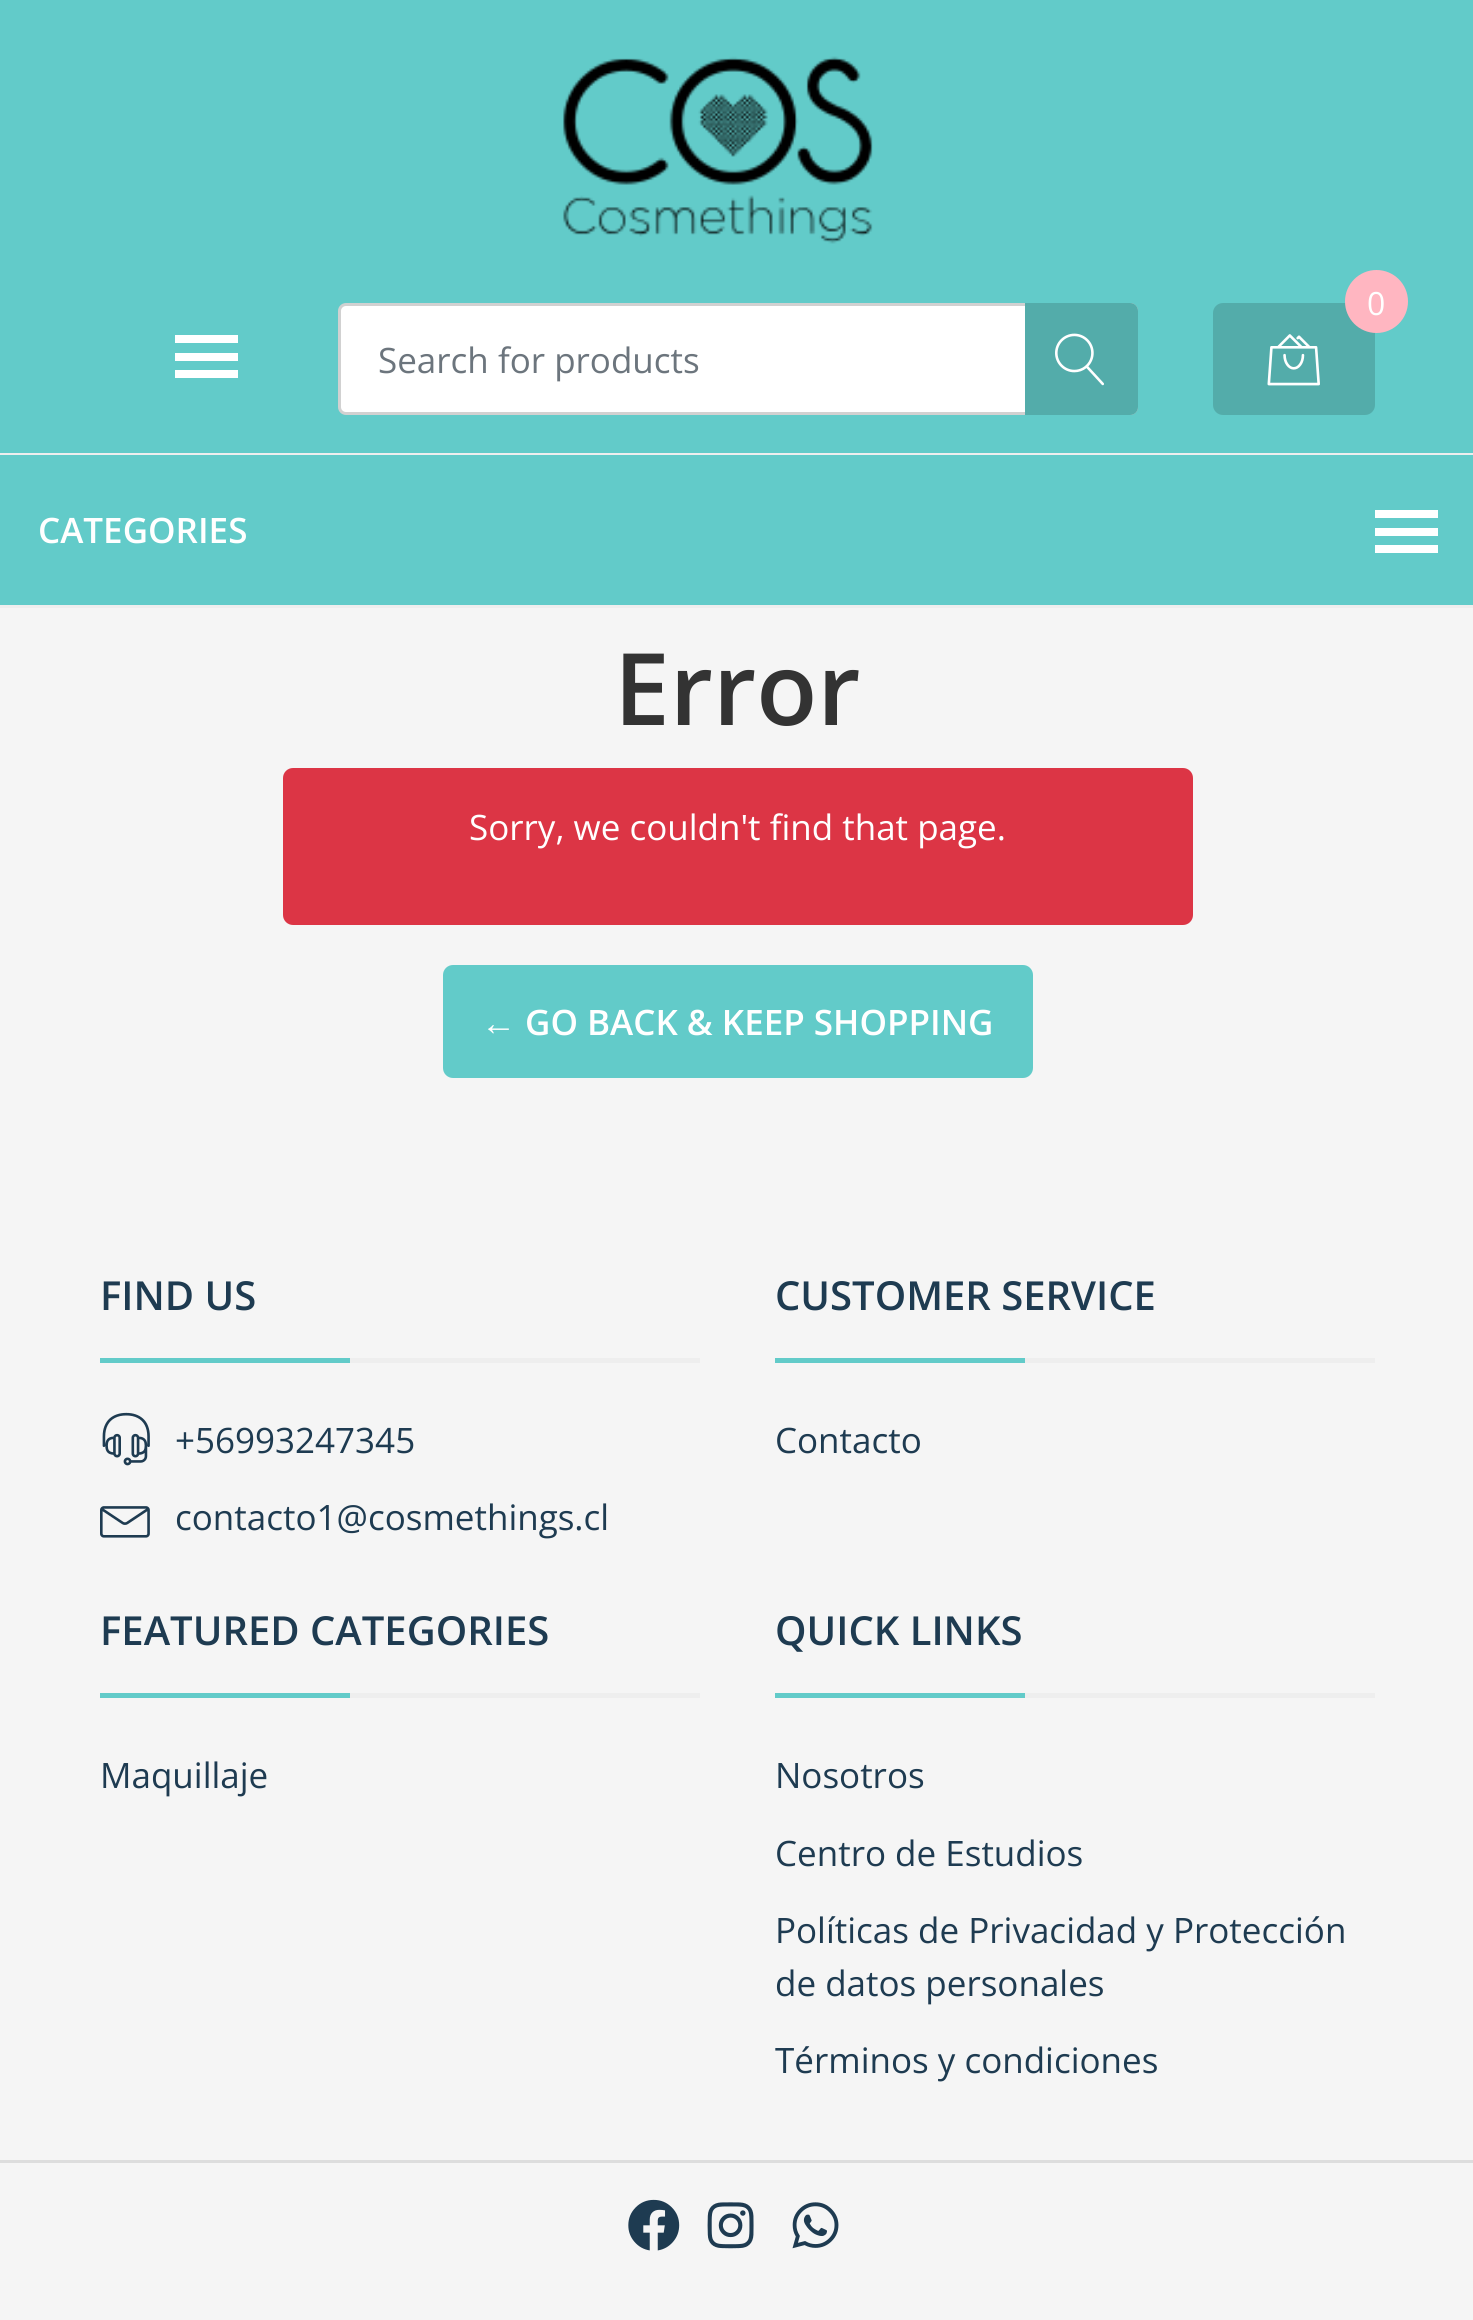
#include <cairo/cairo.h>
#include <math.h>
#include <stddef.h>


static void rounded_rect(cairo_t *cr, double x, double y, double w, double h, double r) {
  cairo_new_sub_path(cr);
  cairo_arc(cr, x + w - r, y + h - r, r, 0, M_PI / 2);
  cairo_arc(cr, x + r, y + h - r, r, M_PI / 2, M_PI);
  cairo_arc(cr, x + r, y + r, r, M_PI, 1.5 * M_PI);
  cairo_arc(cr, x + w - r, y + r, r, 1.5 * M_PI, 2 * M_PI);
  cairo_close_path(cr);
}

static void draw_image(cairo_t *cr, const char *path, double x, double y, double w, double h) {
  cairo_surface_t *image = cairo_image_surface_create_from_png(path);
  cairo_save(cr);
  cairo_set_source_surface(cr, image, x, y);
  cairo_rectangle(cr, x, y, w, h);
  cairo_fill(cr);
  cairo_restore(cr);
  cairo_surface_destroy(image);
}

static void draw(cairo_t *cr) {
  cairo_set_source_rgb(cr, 98 / 255.0, 203 / 255.0, 201 / 255.0);
  cairo_paint(cr);
  draw_image(cr, "images/1.png", 563, 56, 310, 188);
  cairo_set_source_rgb(cr, 83 / 255.0, 172 / 255.0, 170 / 255.0);
  rounded_rect(cr, 1213, 303, 162, 112, 10);
  cairo_fill(cr);
  draw_image(cr, "images/2.png", 1267, 334, 53, 52);
  cairo_set_source_rgb(cr, 1, 182 / 255.0, 193 / 255.0);
  cairo_arc(cr, 1376.5, 301.5, 31.5, 0, 2 * M_PI);
  cairo_fill(cr);
  cairo_set_source_rgb(cr, 1, 1, 1);
  cairo_rectangle(cr, 175, 335, 63, 8);
  cairo_fill(cr);
  cairo_rectangle(cr, 175, 353, 63, 8);
  cairo_fill(cr);
  cairo_rectangle(cr, 175, 370, 63, 8);
  cairo_fill(cr);
  rounded_rect(cr, 339.5, 304.5, 797, 109, 6.5);
  cairo_fill_preserve(cr);
  cairo_set_source_rgb(cr, 209 / 255.0, 209 / 255.0, 209 / 255.0);
  cairo_set_line_width(cr, 3);
  cairo_stroke(cr);
  cairo_set_source_rgb(cr, 83 / 255.0, 172 / 255.0, 170 / 255.0);
  cairo_new_path(cr);
  cairo_move_to(cr, 1025, 303);
  cairo_line_to(cr, 1130, 303);
  cairo_curve_to(cr, 1134.5, 303, 1138, 306.5, 1138, 311);
  cairo_line_to(cr, 1138, 407);
  cairo_curve_to(cr, 1138, 411.5, 1134.5, 415, 1130, 415);
  cairo_line_to(cr, 1025, 415);
  cairo_close_path(cr);
  cairo_fill(cr);
  draw_image(cr, "images/3.png", 1055, 333, 49, 53);
  cairo_set_source_rgb(cr, 238 / 255.0, 238 / 255.0, 238 / 255.0);
  cairo_rectangle(cr, 0, 453, 1473, 2);
  cairo_fill(cr);
  cairo_rectangle(cr, 0, 605, 1473, 3);
  cairo_fill(cr);
  cairo_set_source_rgb(cr, 1, 1, 1);
  cairo_rectangle(cr, 1375, 510, 63, 8);
  cairo_fill(cr);
  cairo_rectangle(cr, 1375, 528, 63, 8);
  cairo_fill(cr);
  cairo_rectangle(cr, 1375, 545, 63, 8);
  cairo_fill(cr);
  cairo_set_source_rgb(cr, 245 / 255.0, 245 / 255.0, 245 / 255.0);
  cairo_rectangle(cr, 0, 608, 1473, 1712);
  cairo_fill(cr);
  cairo_set_source_rgb(cr, 220 / 255.0, 53 / 255.0, 69 / 255.0);
  rounded_rect(cr, 283, 768, 910, 157, 10);
  cairo_fill(cr);
  cairo_set_source_rgb(cr, 98 / 255.0, 203 / 255.0, 201 / 255.0);
  rounded_rect(cr, 443, 965, 590, 113, 10);
  cairo_fill(cr);
  cairo_set_source_rgb(cr, 238 / 255.0, 238 / 255.0, 238 / 255.0);
  cairo_rectangle(cr, 350, 1358, 350, 5);
  cairo_fill(cr);
  cairo_set_source_rgb(cr, 98 / 255.0, 203 / 255.0, 201 / 255.0);
  cairo_rectangle(cr, 100, 1358, 250, 5);
  cairo_fill(cr);
  draw_image(cr, "images/4.png", 102, 1412, 48, 54);
  draw_image(cr, "images/5.png", 100, 1506, 50, 32);
  cairo_set_source_rgb(cr, 238 / 255.0, 238 / 255.0, 238 / 255.0);
  cairo_rectangle(cr, 1025, 1358, 350, 5);
  cairo_fill(cr);
  cairo_set_source_rgb(cr, 98 / 255.0, 203 / 255.0, 201 / 255.0);
  cairo_rectangle(cr, 775, 1358, 250, 5);
  cairo_fill(cr);
  cairo_set_source_rgb(cr, 238 / 255.0, 238 / 255.0, 238 / 255.0);
  cairo_rectangle(cr, 350, 1693, 350, 5);
  cairo_fill(cr);
  cairo_set_source_rgb(cr, 98 / 255.0, 203 / 255.0, 201 / 255.0);
  cairo_rectangle(cr, 100, 1693, 250, 5);
  cairo_fill(cr);
  cairo_set_source_rgb(cr, 238 / 255.0, 238 / 255.0, 238 / 255.0);
  cairo_rectangle(cr, 1025, 1693, 350, 5);
  cairo_fill(cr);
  cairo_set_source_rgb(cr, 98 / 255.0, 203 / 255.0, 201 / 255.0);
  cairo_rectangle(cr, 775, 1693, 250, 5);
  cairo_fill(cr);
  cairo_set_source_rgb(cr, 221 / 255.0, 221 / 255.0, 221 / 255.0);
  cairo_rectangle(cr, 0, 2160, 1473, 3);
  cairo_fill(cr);
  draw_image(cr, "images/6.png", 628, 2199, 52, 52);
  draw_image(cr, "images/7.png", 707, 2202, 47, 47);
  draw_image(cr, "images/8.png", 792, 2202, 47, 47);
  cairo_select_font_face(cr, "Open Sans", CAIRO_FONT_SLANT_NORMAL, CAIRO_FONT_WEIGHT_NORMAL);
  cairo_set_font_size(cr, 32);
  cairo_set_source_rgb(cr, 1, 1, 1);
  cairo_move_to(cr, 1367, 315);
  cairo_show_text(cr, "0");
  cairo_set_font_size(cr, 35);
  cairo_set_source_rgb(cr, 108 / 255.0, 117 / 255.0, 125 / 255.0);
  cairo_move_to(cr, 378, 373);
  cairo_show_text(cr, "Search for products");
  cairo_select_font_face(cr, "Open Sans SemiBold", CAIRO_FONT_SLANT_NORMAL, CAIRO_FONT_WEIGHT_NORMAL);
  cairo_set_source_rgb(cr, 1, 1, 1);
  cairo_move_to(cr, 38, 543);
  cairo_show_text(cr, "CATEGORIES");
  cairo_set_font_size(cr, 100);
  cairo_set_source_rgb(cr, 51 / 255.0, 51 / 255.0, 51 / 255.0);
  cairo_move_to(cr, 614, 725);
  cairo_show_text(cr, "Error");
  cairo_select_font_face(cr, "Open Sans", CAIRO_FONT_SLANT_NORMAL, CAIRO_FONT_WEIGHT_NORMAL);
  cairo_set_font_size(cr, 35);
  cairo_set_source_rgb(cr, 1, 1, 1);
  cairo_move_to(cr, 469, 840);
  cairo_show_text(cr, "Sorry, we couldn't find that page.");
  cairo_select_font_face(cr, "Liberation Serif", CAIRO_FONT_SLANT_NORMAL, CAIRO_FONT_WEIGHT_BOLD);
  cairo_move_to(cr, 481, 1035);
  cairo_show_text(cr, "←");
  cairo_select_font_face(cr, "Open Sans SemiBold", CAIRO_FONT_SLANT_NORMAL, CAIRO_FONT_WEIGHT_NORMAL);
  cairo_move_to(cr, 525, 1035);
  cairo_show_text(cr, "GO BACK & KEEP SHOPPING");
  cairo_set_font_size(cr, 40);
  cairo_set_source_rgb(cr, 30 / 255.0, 59 / 255.0, 81 / 255.0);
  cairo_move_to(cr, 100, 1310);
  cairo_show_text(cr, "FIND US");
  cairo_select_font_face(cr, "Open Sans", CAIRO_FONT_SLANT_NORMAL, CAIRO_FONT_WEIGHT_NORMAL);
  cairo_set_font_size(cr, 35);
  cairo_move_to(cr, 175, 1453);
  cairo_show_text(cr, "+56993247345");
  cairo_move_to(cr, 175, 1530);
  cairo_show_text(cr, "contacto1@cosmethings.cl");
  cairo_select_font_face(cr, "Open Sans SemiBold", CAIRO_FONT_SLANT_NORMAL, CAIRO_FONT_WEIGHT_NORMAL);
  cairo_set_font_size(cr, 40);
  cairo_move_to(cr, 775, 1310);
  cairo_show_text(cr, "CUSTOMER SERVICE");
  cairo_select_font_face(cr, "Open Sans", CAIRO_FONT_SLANT_NORMAL, CAIRO_FONT_WEIGHT_NORMAL);
  cairo_set_font_size(cr, 35);
  cairo_move_to(cr, 775, 1453);
  cairo_show_text(cr, "Contacto");
  cairo_select_font_face(cr, "Open Sans SemiBold", CAIRO_FONT_SLANT_NORMAL, CAIRO_FONT_WEIGHT_NORMAL);
  cairo_set_font_size(cr, 40);
  cairo_move_to(cr, 100, 1645);
  cairo_show_text(cr, "FEATURED CATEGORIES");
  cairo_select_font_face(cr, "Open Sans", CAIRO_FONT_SLANT_NORMAL, CAIRO_FONT_WEIGHT_NORMAL);
  cairo_set_font_size(cr, 35);
  cairo_move_to(cr, 100, 1788);
  cairo_show_text(cr, "Maquillaje");
  cairo_select_font_face(cr, "Open Sans SemiBold", CAIRO_FONT_SLANT_NORMAL, CAIRO_FONT_WEIGHT_NORMAL);
  cairo_set_font_size(cr, 40);
  cairo_move_to(cr, 775, 1645);
  cairo_show_text(cr, "QUICK LINKS");
  cairo_select_font_face(cr, "Open Sans", CAIRO_FONT_SLANT_NORMAL, CAIRO_FONT_WEIGHT_NORMAL);
  cairo_set_font_size(cr, 35);
  cairo_move_to(cr, 775, 1788);
  cairo_show_text(cr, "Nosotros");
  cairo_move_to(cr, 775, 1866);
  cairo_show_text(cr, "Centro de Estudios");
  cairo_move_to(cr, 775, 1943);
  cairo_show_text(cr, "Políticas de Privacidad y Protección");
  cairo_move_to(cr, 775, 1996);
  cairo_show_text(cr, "de datos personales");
  cairo_move_to(cr, 775, 2073);
  cairo_show_text(cr, "Términos y condiciones");
}

int main(void) {
  cairo_surface_t *surface = cairo_image_surface_create(CAIRO_FORMAT_RGB24, 1473, 2320);
  cairo_t *cr = cairo_create(surface);
  cairo_font_options_t *options = cairo_font_options_create();
  cairo_font_options_set_hint_metrics(options, CAIRO_HINT_METRICS_OFF);
  cairo_font_options_set_hint_style(options, CAIRO_HINT_STYLE_NONE);
  cairo_set_font_options(cr, options);
  cairo_set_miter_limit(cr, 4);
  draw(cr);
  cairo_surface_write_to_png(surface, "out.png");
  cairo_font_options_destroy(options);
  cairo_destroy(cr);
  cairo_surface_destroy(surface);
  return 0;
}
